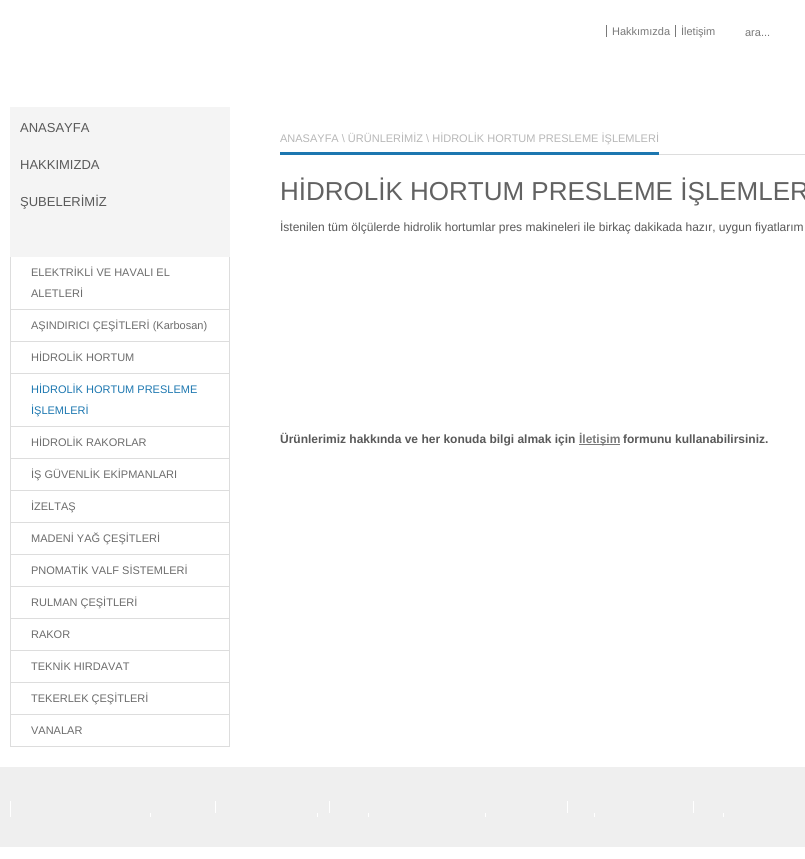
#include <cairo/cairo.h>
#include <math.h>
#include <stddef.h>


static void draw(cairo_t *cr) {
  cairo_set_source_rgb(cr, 1, 1, 1);
  cairo_paint(cr);
  cairo_set_source_rgb(cr, 121 / 255.0, 121 / 255.0, 121 / 255.0);
  cairo_rectangle(cr, 606, 25, 1, 12);
  cairo_fill(cr);
  cairo_rectangle(cr, 675, 25, 1, 12);
  cairo_fill(cr);
  cairo_set_source_rgb(cr, 244 / 255.0, 244 / 255.0, 244 / 255.0);
  cairo_rectangle(cr, 10, 107, 220, 150);
  cairo_fill(cr);
  cairo_set_source_rgb(cr, 221 / 255.0, 221 / 255.0, 221 / 255.0);
  cairo_rectangle(cr, 229, 257, 1, 490);
  cairo_fill(cr);
  cairo_rectangle(cr, 10, 309, 220, 1);
  cairo_fill(cr);
  cairo_rectangle(cr, 10, 257, 1, 53);
  cairo_fill(cr);
  cairo_rectangle(cr, 10, 341, 220, 1);
  cairo_fill(cr);
  cairo_rectangle(cr, 10, 310, 1, 32);
  cairo_fill(cr);
  cairo_rectangle(cr, 10, 373, 220, 1);
  cairo_fill(cr);
  cairo_rectangle(cr, 10, 342, 1, 32);
  cairo_fill(cr);
  cairo_rectangle(cr, 10, 426, 220, 1);
  cairo_fill(cr);
  cairo_rectangle(cr, 10, 374, 1, 53);
  cairo_fill(cr);
  cairo_rectangle(cr, 10, 458, 220, 1);
  cairo_fill(cr);
  cairo_rectangle(cr, 10, 427, 1, 32);
  cairo_fill(cr);
  cairo_rectangle(cr, 10, 490, 220, 1);
  cairo_fill(cr);
  cairo_rectangle(cr, 10, 459, 1, 32);
  cairo_fill(cr);
  cairo_rectangle(cr, 10, 522, 220, 1);
  cairo_fill(cr);
  cairo_rectangle(cr, 10, 491, 1, 32);
  cairo_fill(cr);
  cairo_rectangle(cr, 10, 554, 220, 1);
  cairo_fill(cr);
  cairo_rectangle(cr, 10, 523, 1, 32);
  cairo_fill(cr);
  cairo_rectangle(cr, 10, 586, 220, 1);
  cairo_fill(cr);
  cairo_rectangle(cr, 10, 555, 1, 32);
  cairo_fill(cr);
  cairo_rectangle(cr, 10, 618, 220, 1);
  cairo_fill(cr);
  cairo_rectangle(cr, 10, 587, 1, 32);
  cairo_fill(cr);
  cairo_rectangle(cr, 10, 650, 220, 1);
  cairo_fill(cr);
  cairo_rectangle(cr, 10, 619, 1, 32);
  cairo_fill(cr);
  cairo_rectangle(cr, 10, 682, 220, 1);
  cairo_fill(cr);
  cairo_rectangle(cr, 10, 651, 1, 32);
  cairo_fill(cr);
  cairo_rectangle(cr, 10, 714, 220, 1);
  cairo_fill(cr);
  cairo_rectangle(cr, 10, 683, 1, 32);
  cairo_fill(cr);
  cairo_rectangle(cr, 10, 746, 220, 1);
  cairo_fill(cr);
  cairo_rectangle(cr, 10, 715, 1, 32);
  cairo_fill(cr);
  cairo_rectangle(cr, 659, 154, 146, 1);
  cairo_fill(cr);
  cairo_set_source_rgb(cr, 28 / 255.0, 119 / 255.0, 176 / 255.0);
  cairo_rectangle(cr, 280, 152, 379, 3);
  cairo_fill(cr);
  cairo_set_source_rgb(cr, 121 / 255.0, 121 / 255.0, 121 / 255.0);
  cairo_rectangle(cr, 579, 444, 41, 1);
  cairo_fill(cr);
  cairo_set_source_rgb(cr, 239 / 255.0, 239 / 255.0, 239 / 255.0);
  cairo_rectangle(cr, 0, 767, 805, 80);
  cairo_fill(cr);
  cairo_set_source_rgb(cr, 1, 1, 1);
  cairo_rectangle(cr, 10, 801, 1, 16);
  cairo_fill(cr);
  cairo_rectangle(cr, 215, 801, 1, 12);
  cairo_fill(cr);
  cairo_rectangle(cr, 329, 801, 1, 12);
  cairo_fill(cr);
  cairo_rectangle(cr, 567, 801, 1, 12);
  cairo_fill(cr);
  cairo_rectangle(cr, 693, 801, 1, 12);
  cairo_fill(cr);
  cairo_rectangle(cr, 150, 813, 1, 4);
  cairo_fill(cr);
  cairo_rectangle(cr, 317, 813, 1, 4);
  cairo_fill(cr);
  cairo_rectangle(cr, 368, 813, 1, 4);
  cairo_fill(cr);
  cairo_rectangle(cr, 485, 813, 1, 4);
  cairo_fill(cr);
  cairo_rectangle(cr, 594, 813, 1, 4);
  cairo_fill(cr);
  cairo_rectangle(cr, 723, 813, 1, 4);
  cairo_fill(cr);
  cairo_select_font_face(cr, "Liberation Sans", CAIRO_FONT_SLANT_NORMAL, CAIRO_FONT_WEIGHT_NORMAL);
  cairo_set_font_size(cr, 11);
  cairo_set_source_rgb(cr, 121 / 255.0, 121 / 255.0, 121 / 255.0);
  cairo_move_to(cr, 612, 35);
  cairo_show_text(cr, "Hakkımızda");
  cairo_move_to(cr, 681, 35);
  cairo_show_text(cr, "İletişim");
  cairo_move_to(cr, 745, 36);
  cairo_show_text(cr, "ara...");
  cairo_set_font_size(cr, 13);
  cairo_set_source_rgb(cr, 89 / 255.0, 89 / 255.0, 89 / 255.0);
  cairo_move_to(cr, 20, 132);
  cairo_show_text(cr, "ANASAYFA");
  cairo_move_to(cr, 20, 169);
  cairo_show_text(cr, "HAKKIMIZDA");
  cairo_move_to(cr, 20, 206);
  cairo_show_text(cr, "ŞUBELERİMİZ");
  cairo_set_font_size(cr, 11);
  cairo_set_source_rgb(cr, 108 / 255.0, 108 / 255.0, 108 / 255.0);
  cairo_move_to(cr, 31, 276);
  cairo_show_text(cr, "ELEKTRİKLİ VE HAVALI EL");
  cairo_move_to(cr, 31, 297);
  cairo_show_text(cr, "ALETLERİ");
  cairo_move_to(cr, 31, 329);
  cairo_show_text(cr, "AŞINDIRICI ÇEŞİTLERİ (Karbosan)");
  cairo_move_to(cr, 31, 361);
  cairo_show_text(cr, "HİDROLİK HORTUM");
  cairo_set_source_rgb(cr, 28 / 255.0, 119 / 255.0, 176 / 255.0);
  cairo_move_to(cr, 31, 393);
  cairo_show_text(cr, "HİDROLİK HORTUM PRESLEME");
  cairo_move_to(cr, 31, 414);
  cairo_show_text(cr, "İŞLEMLERİ");
  cairo_set_source_rgb(cr, 108 / 255.0, 108 / 255.0, 108 / 255.0);
  cairo_move_to(cr, 31, 446);
  cairo_show_text(cr, "HİDROLİK RAKORLAR");
  cairo_move_to(cr, 31, 478);
  cairo_show_text(cr, "İŞ GÜVENLİK EKİPMANLARI");
  cairo_move_to(cr, 31, 510);
  cairo_show_text(cr, "İZELTAŞ");
  cairo_move_to(cr, 31, 542);
  cairo_show_text(cr, "MADENİ YAĞ ÇEŞİTLERİ");
  cairo_move_to(cr, 31, 574);
  cairo_show_text(cr, "PNOMATİK VALF SİSTEMLERİ");
  cairo_move_to(cr, 31, 606);
  cairo_show_text(cr, "RULMAN ÇEŞİTLERİ");
  cairo_move_to(cr, 31, 638);
  cairo_show_text(cr, "RAKOR");
  cairo_move_to(cr, 31, 670);
  cairo_show_text(cr, "TEKNİK HIRDAVAT");
  cairo_move_to(cr, 31, 702);
  cairo_show_text(cr, "TEKERLEK ÇEŞİTLERİ");
  cairo_move_to(cr, 31, 734);
  cairo_show_text(cr, "VANALAR");
  cairo_set_source_rgb(cr, 183 / 255.0, 183 / 255.0, 183 / 255.0);
  cairo_move_to(cr, 280, 142);
  cairo_show_text(cr, "ANASAYFA \\ ÜRÜNLERİMİZ \\ HİDROLİK HORTUM PRESLEME İŞLEMLERİ");
  cairo_set_font_size(cr, 26);
  cairo_set_source_rgb(cr, 98 / 255.0, 98 / 255.0, 98 / 255.0);
  cairo_move_to(cr, 280, 200);
  cairo_show_text(cr, "HİDROLİK HORTUM PRESLEME İŞLEMLER");
  cairo_set_font_size(cr, 12);
  cairo_set_source_rgb(cr, 89 / 255.0, 89 / 255.0, 89 / 255.0);
  cairo_move_to(cr, 280, 231);
  cairo_show_text(cr, "İstenilen tüm ölçülerde hidrolik hortumlar pres makineleri ile birkaç dakikada hazır, uygun fiyatlarım");
  cairo_select_font_face(cr, "Liberation Sans", CAIRO_FONT_SLANT_NORMAL, CAIRO_FONT_WEIGHT_BOLD);
  cairo_move_to(cr, 280, 443);
  cairo_show_text(cr, "Ürünlerimiz hakkında ve her konuda bilgi almak için");
  cairo_set_source_rgb(cr, 121 / 255.0, 121 / 255.0, 121 / 255.0);
  cairo_move_to(cr, 579, 443);
  cairo_show_text(cr, "İletişim");
  cairo_set_source_rgb(cr, 89 / 255.0, 89 / 255.0, 89 / 255.0);
  cairo_move_to(cr, 623, 443);
  cairo_show_text(cr, "formunu kullanabilirsiniz.");
}

int main(void) {
  cairo_surface_t *surface = cairo_image_surface_create(CAIRO_FORMAT_RGB24, 805, 859);
  cairo_t *cr = cairo_create(surface);
  cairo_font_options_t *options = cairo_font_options_create();
  cairo_font_options_set_hint_metrics(options, CAIRO_HINT_METRICS_OFF);
  cairo_font_options_set_hint_style(options, CAIRO_HINT_STYLE_NONE);
  cairo_set_font_options(cr, options);
  cairo_set_miter_limit(cr, 4);
  draw(cr);
  cairo_surface_write_to_png(surface, "out.png");
  cairo_font_options_destroy(options);
  cairo_destroy(cr);
  cairo_surface_destroy(surface);
  return 0;
}
